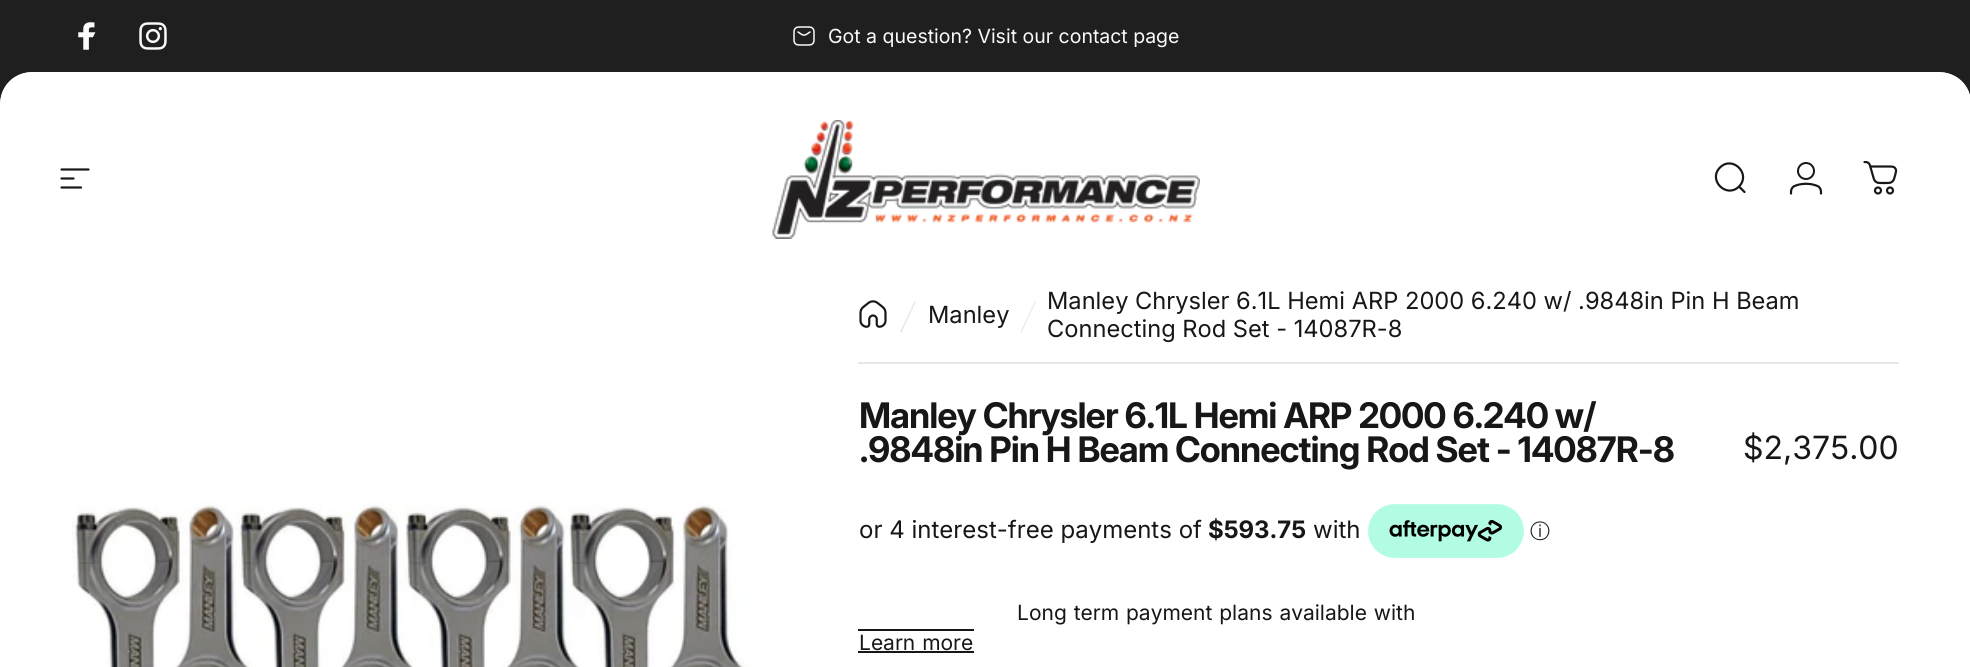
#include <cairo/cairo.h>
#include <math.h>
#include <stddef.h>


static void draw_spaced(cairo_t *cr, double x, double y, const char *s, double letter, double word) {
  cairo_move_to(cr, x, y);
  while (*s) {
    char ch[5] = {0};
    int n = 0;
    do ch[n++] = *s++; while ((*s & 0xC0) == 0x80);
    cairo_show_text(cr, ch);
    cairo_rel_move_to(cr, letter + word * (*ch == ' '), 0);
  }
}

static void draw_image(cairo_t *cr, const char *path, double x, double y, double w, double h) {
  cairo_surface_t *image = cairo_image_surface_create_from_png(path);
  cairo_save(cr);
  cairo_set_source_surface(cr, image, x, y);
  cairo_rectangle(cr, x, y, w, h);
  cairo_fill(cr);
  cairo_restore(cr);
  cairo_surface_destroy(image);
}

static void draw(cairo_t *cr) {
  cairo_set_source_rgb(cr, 1, 1, 1);
  cairo_paint(cr);
  cairo_set_source_rgb(cr, 31 / 255.0, 31 / 255.0, 31 / 255.0);
  cairo_rectangle(cr, 0, 0, 1970, 72);
  cairo_fill(cr);
  draw_image(cr, "images/1.png", 78, 22, 18, 28);
  draw_image(cr, "images/2.png", 139, 22, 28, 28);
  draw_image(cr, "images/3.png", 793, 26, 22, 20);
  cairo_set_fill_rule(cr, CAIRO_FILL_RULE_EVEN_ODD);
  cairo_new_path(cr);
  cairo_move_to(cr, 31, 72);
  cairo_line_to(cr, 0, 72);
  cairo_line_to(cr, 0, 103);
  cairo_line_to(cr, 0.5, 103);
  cairo_curve_to(cr, 0.5, 86, 14, 72.5, 31, 72.5);
  cairo_close_path(cr);
  cairo_fill(cr);
  cairo_new_path(cr);
  cairo_move_to(cr, 1940.5, 72);
  cairo_line_to(cr, 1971.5, 72);
  cairo_line_to(cr, 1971.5, 103);
  cairo_line_to(cr, 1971, 103);
  cairo_curve_to(cr, 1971, 86, 1957.5, 72.5, 1940.5, 72.5);
  cairo_close_path(cr);
  cairo_fill(cr);
  cairo_set_source_rgb(cr, 1, 1, 1);
  cairo_new_path(cr);
  cairo_move_to(cr, 32, 72);
  cairo_line_to(cr, 1939, 72);
  cairo_curve_to(cr, 1956.5, 72, 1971, 86.5, 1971, 104);
  cairo_line_to(cr, 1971, 287);
  cairo_line_to(cr, 0, 287);
  cairo_line_to(cr, 0, 104);
  cairo_curve_to(cr, 0, 86.5, 14.5, 72, 32, 72);
  cairo_close_path(cr);
  cairo_fill(cr);
  cairo_new_path(cr);
  cairo_move_to(cr, 61.5, 169.5);
  cairo_line_to(cr, 88.5, 169.5);
  cairo_move_to(cr, 61.5, 178.5);
  cairo_line_to(cr, 73.5, 178.5);
  cairo_move_to(cr, 61.5, 187.5);
  cairo_line_to(cr, 81, 187.5);
  cairo_set_source_rgb(cr, 23 / 255.0, 23 / 255.0, 23 / 255.0);
  cairo_set_line_width(cr, 2.2);
  cairo_set_line_cap(cr, CAIRO_LINE_CAP_ROUND);
  cairo_stroke(cr);
  draw_image(cr, "images/4.png", 772, 120, 428, 119);
  cairo_new_path(cr);
  cairo_move_to(cr, 1744.5, 192);
  cairo_line_to(cr, 1739, 186.5);
  cairo_move_to(cr, 1739, 186.5);
  cairo_curve_to(cr, 1751.5, 174, 1732.5, 155, 1720, 167.5);
  cairo_curve_to(cr, 1707.5, 180, 1726.5, 199, 1739, 186.5);
  cairo_close_path(cr);
  cairo_stroke(cr);
  draw_image(cr, "images/5.png", 1789, 162, 34, 33);
  draw_image(cr, "images/6.png", 1863, 161, 35, 34);
  draw_image(cr, "images/7.png", 72, 287, 693, 380);
  cairo_set_source_rgb(cr, 232 / 255.0, 232 / 255.0, 232 / 255.0);
  cairo_rectangle(cr, 858, 362, 1041, 2);
  cairo_fill(cr);
  draw_image(cr, "images/8.png", 859, 300, 28, 28);
  cairo_set_fill_rule(cr, CAIRO_FILL_RULE_WINDING);
  cairo_new_path(cr);
  cairo_move_to(cr, 914.5, 301);
  cairo_line_to(cr, 916, 301.5);
  cairo_line_to(cr, 901.5, 332.5);
  cairo_line_to(cr, 900, 332);
  cairo_close_path(cr);
  cairo_fill(cr);
  cairo_new_path(cr);
  cairo_move_to(cr, 1035, 301);
  cairo_line_to(cr, 1036, 301.5);
  cairo_line_to(cr, 1021.5, 332.5);
  cairo_line_to(cr, 1020.5, 332);
  cairo_close_path(cr);
  cairo_fill(cr);
  draw_image(cr, "images/9.png", 1368, 504, 156, 54);
  cairo_set_source_rgb(cr, 23 / 255.0, 23 / 255.0, 23 / 255.0);
  cairo_rectangle(cr, 858, 629, 116, 2);
  cairo_fill(cr);
  cairo_rectangle(cr, 858, 651, 116, 2);
  cairo_fill(cr);
  cairo_select_font_face(cr, "Inter", CAIRO_FONT_SLANT_NORMAL, CAIRO_FONT_WEIGHT_NORMAL);
  cairo_set_font_size(cr, 19.5);
  cairo_set_source_rgb(cr, 250 / 255.0, 250 / 255.0, 250 / 255.0);
  cairo_move_to(cr, 828, 43);
  cairo_show_text(cr, "Got a question? Visit our contact page");
  cairo_set_font_size(cr, 23.65);
  cairo_set_source_rgb(cr, 23 / 255.0, 23 / 255.0, 23 / 255.0);
  cairo_move_to(cr, 928, 323);
  cairo_show_text(cr, "Manley");
  cairo_move_to(cr, 1047, 309);
  cairo_show_text(cr, "Manley Chrysler 6.1L Hemi ARP 2000 6.240 w/ .9848in Pin H Beam");
  cairo_move_to(cr, 1047, 337);
  cairo_show_text(cr, "Connecting Rod Set - 14087R-8");
  cairo_select_font_face(cr, "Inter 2", CAIRO_FONT_SLANT_NORMAL, CAIRO_FONT_WEIGHT_BOLD);
  cairo_set_font_size(cr, 35.25);
  draw_spaced(cr, 859, 428, "Manley Chrysler 6.1L Hemi ARP 2000 6.240 w/", -1.05, 0);
  draw_spaced(cr, 859, 462, ".9848in Pin H Beam Connecting Rod Set - 14087R-8", -1.05, 0);
  cairo_select_font_face(cr, "Inter", CAIRO_FONT_SLANT_NORMAL, CAIRO_FONT_WEIGHT_NORMAL);
  cairo_set_font_size(cr, 32);
  cairo_move_to(cr, 1743, 459);
  cairo_show_text(cr, "$2,375.00");
  cairo_set_font_size(cr, 24);
  cairo_move_to(cr, 859, 538);
  cairo_show_text(cr, "or 4 interest-free payments of");
  cairo_select_font_face(cr, "Inter", CAIRO_FONT_SLANT_NORMAL, CAIRO_FONT_WEIGHT_BOLD);
  cairo_move_to(cr, 1208, 538);
  cairo_show_text(cr, "$593.75");
  cairo_select_font_face(cr, "Inter", CAIRO_FONT_SLANT_NORMAL, CAIRO_FONT_WEIGHT_NORMAL);
  cairo_move_to(cr, 1313, 538);
  cairo_show_text(cr, "with");
  cairo_select_font_face(cr, "WenQuanYi Zen Hei Medium", CAIRO_FONT_SLANT_NORMAL, CAIRO_FONT_WEIGHT_NORMAL);
  cairo_set_font_size(cr, 20);
  cairo_move_to(cr, 1530, 538);
  cairo_show_text(cr, "ⓘ");
  cairo_select_font_face(cr, "Inter", CAIRO_FONT_SLANT_NORMAL, CAIRO_FONT_WEIGHT_NORMAL);
  cairo_set_font_size(cr, 21);
  draw_spaced(cr, 1017, 620, "Long term payment plans available with", 0, 1);
  draw_spaced(cr, 859, 650, "Learn more", 0, 1);
}

int main(void) {
  cairo_surface_t *surface = cairo_image_surface_create(CAIRO_FORMAT_RGB24, 1970, 667);
  cairo_t *cr = cairo_create(surface);
  cairo_font_options_t *options = cairo_font_options_create();
  cairo_font_options_set_hint_metrics(options, CAIRO_HINT_METRICS_OFF);
  cairo_font_options_set_hint_style(options, CAIRO_HINT_STYLE_NONE);
  cairo_set_font_options(cr, options);
  cairo_set_miter_limit(cr, 4);
  draw(cr);
  cairo_surface_write_to_png(surface, "out.png");
  cairo_font_options_destroy(options);
  cairo_destroy(cr);
  cairo_surface_destroy(surface);
  return 0;
}
